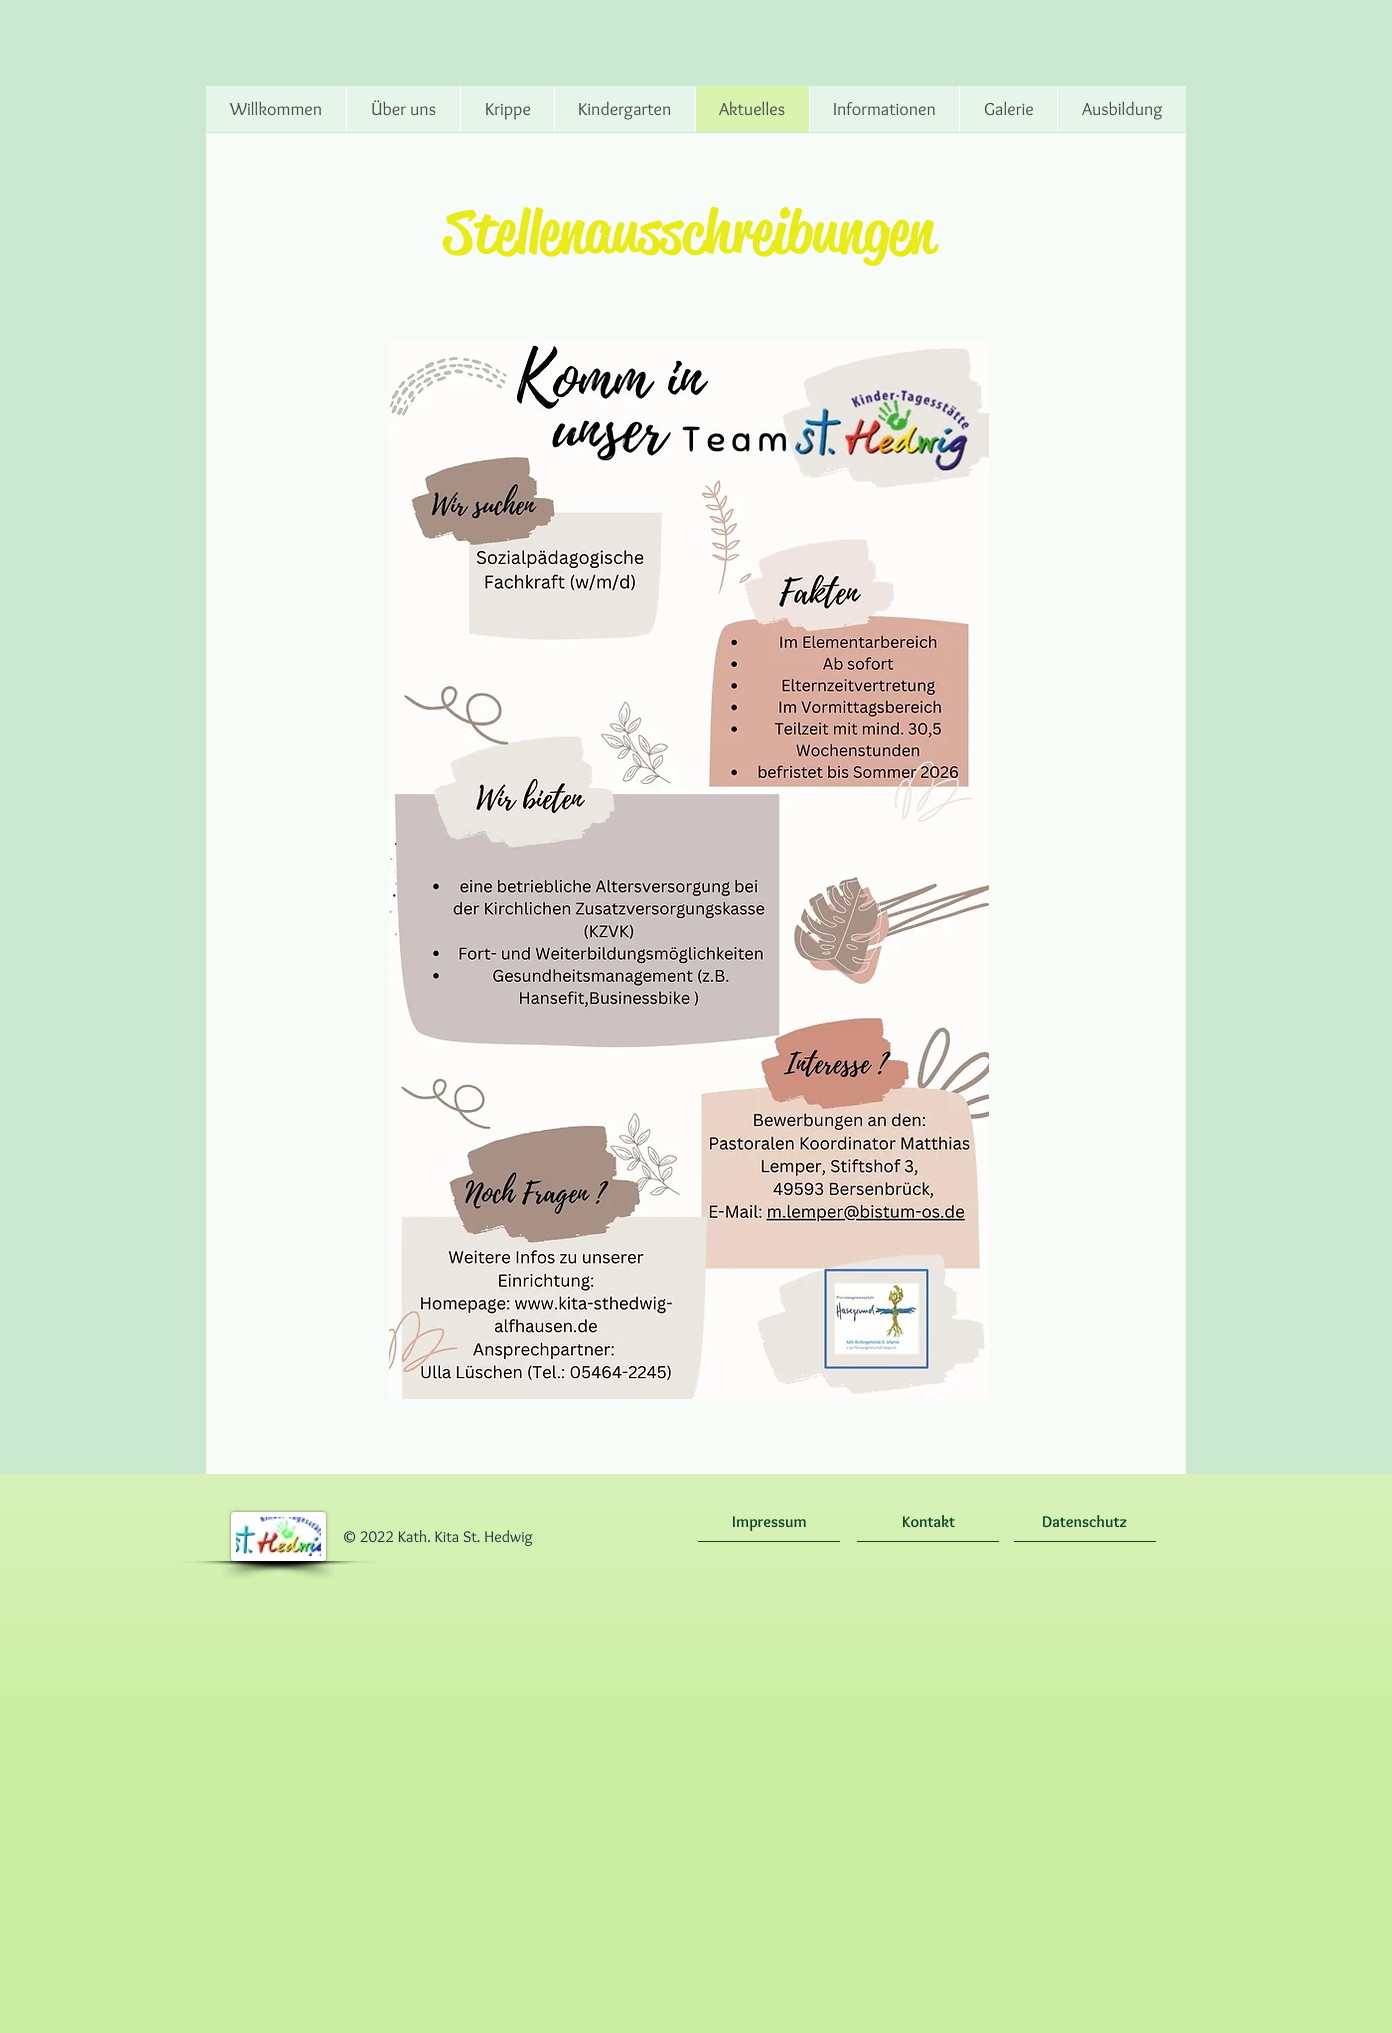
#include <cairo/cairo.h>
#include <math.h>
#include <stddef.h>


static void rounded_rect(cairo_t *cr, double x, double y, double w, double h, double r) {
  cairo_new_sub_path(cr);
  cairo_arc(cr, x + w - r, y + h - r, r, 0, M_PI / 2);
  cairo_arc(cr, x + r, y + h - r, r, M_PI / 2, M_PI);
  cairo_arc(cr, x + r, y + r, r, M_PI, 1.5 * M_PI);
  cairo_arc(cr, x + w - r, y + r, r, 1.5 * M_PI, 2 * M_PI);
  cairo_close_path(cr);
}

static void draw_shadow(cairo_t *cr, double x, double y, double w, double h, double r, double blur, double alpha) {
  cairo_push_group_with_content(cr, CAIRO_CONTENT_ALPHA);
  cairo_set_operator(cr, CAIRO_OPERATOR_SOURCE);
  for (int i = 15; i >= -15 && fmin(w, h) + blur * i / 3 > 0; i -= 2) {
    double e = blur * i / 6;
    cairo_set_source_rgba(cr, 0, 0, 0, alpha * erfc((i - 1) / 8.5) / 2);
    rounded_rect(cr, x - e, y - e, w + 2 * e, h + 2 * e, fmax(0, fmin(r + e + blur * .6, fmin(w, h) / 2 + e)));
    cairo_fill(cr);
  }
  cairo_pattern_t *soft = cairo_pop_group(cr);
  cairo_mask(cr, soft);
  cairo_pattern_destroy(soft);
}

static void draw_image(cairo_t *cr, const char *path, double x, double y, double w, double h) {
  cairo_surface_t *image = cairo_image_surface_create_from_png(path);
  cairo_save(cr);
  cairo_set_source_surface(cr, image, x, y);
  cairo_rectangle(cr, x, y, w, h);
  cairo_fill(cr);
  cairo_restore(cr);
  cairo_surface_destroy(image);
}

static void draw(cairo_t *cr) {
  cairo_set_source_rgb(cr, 202 / 255.0, 233 / 255.0, 208 / 255.0);
  cairo_paint(cr);
  cairo_set_source_rgb(cr, 230 / 255.0, 245 / 255.0, 233 / 255.0);
  cairo_rectangle(cr, 206, 86, 980, 46);
  cairo_fill(cr);
  cairo_set_source_rgb(cr, 1, 1, 1);
  cairo_rectangle(cr, 346, 86, 1, 46);
  cairo_fill(cr);
  cairo_rectangle(cr, 460, 86, 1, 46);
  cairo_fill(cr);
  cairo_rectangle(cr, 554, 86, 1, 46);
  cairo_fill(cr);
  cairo_set_source_rgb(cr, 216 / 255.0, 244 / 255.0, 174 / 255.0);
  cairo_rectangle(cr, 696, 86, 113, 46);
  cairo_fill(cr);
  cairo_set_source_rgb(cr, 1, 1, 1);
  cairo_rectangle(cr, 695, 86, 1, 46);
  cairo_fill(cr);
  cairo_rectangle(cr, 809, 86, 1, 46);
  cairo_fill(cr);
  cairo_rectangle(cr, 959, 86, 1, 46);
  cairo_fill(cr);
  cairo_rectangle(cr, 1057, 86, 1, 46);
  cairo_fill(cr);
  cairo_set_source_rgb(cr, 247 / 255.0, 252 / 255.0, 248 / 255.0);
  cairo_rectangle(cr, 206, 133, 980, 1341);
  cairo_fill(cr);
  draw_image(cr, "images/1.png", 389, 342, 600, 1057);
  cairo_set_source_rgb(cr, 202 / 255.0, 238 / 255.0, 161 / 255.0);
  cairo_rectangle(cr, 0, 1474, 1392, 559);
  cairo_fill(cr);
  draw_image(cr, "images/2.png", 0, 1474, 1392, 224);
  cairo_set_source_rgb(cr, 0, 0, 0);
  draw_shadow(cr, 231, 1512, 95, 49, 3, 1.5, 0.5);
  rounded_rect(cr, 233.5, 1514.5, 90, 44, 0.5);
  cairo_set_source_rgb(cr, 1, 1, 1);
  cairo_set_line_width(cr, 5);
  cairo_stroke(cr);
  draw_image(cr, "images/3.png", 236, 1517, 85, 39);
  draw_image(cr, "images/5.png", 222, 1561, 154, 18);
  draw_image(cr, "images/4.png", 181, 1561, 154, 18);
  cairo_set_source_rgb(cr, 12 / 255.0, 68 / 255.0, 38 / 255.0);
  cairo_rectangle(cr, 698, 1541, 142, 1);
  cairo_fill(cr);
  cairo_rectangle(cr, 857, 1541, 142, 1);
  cairo_fill(cr);
  cairo_rectangle(cr, 1014, 1541, 142, 1);
  cairo_fill(cr);
  cairo_select_font_face(cr, "Overlock", CAIRO_FONT_SLANT_NORMAL, CAIRO_FONT_WEIGHT_NORMAL);
  cairo_set_font_size(cr, 18);
  cairo_set_source_rgb(cr, 74 / 255.0, 74 / 255.0, 74 / 255.0);
  cairo_move_to(cr, 230, 115);
  cairo_show_text(cr, "Willkommen");
  cairo_move_to(cr, 371, 115);
  cairo_show_text(cr, "Über uns");
  cairo_move_to(cr, 485, 115);
  cairo_show_text(cr, "Krippe");
  cairo_move_to(cr, 578, 115);
  cairo_show_text(cr, "Kindergarten");
  cairo_move_to(cr, 719, 115);
  cairo_show_text(cr, "Aktuelles");
  cairo_move_to(cr, 833, 115);
  cairo_show_text(cr, "Informationen");
  cairo_move_to(cr, 984, 115);
  cairo_show_text(cr, "Galerie");
  cairo_move_to(cr, 1082, 115);
  cairo_show_text(cr, "Ausbildung");
  cairo_select_font_face(cr, "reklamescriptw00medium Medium", CAIRO_FONT_SLANT_NORMAL, CAIRO_FONT_WEIGHT_NORMAL);
  cairo_set_font_size(cr, 60);
  cairo_set_source_rgb(cr, 232 / 255.0, 235 / 255.0, 23 / 255.0);
  cairo_move_to(cr, 444, 252);
  cairo_show_text(cr, "Stellenausschreibungen");
  cairo_select_font_face(cr, "Overlock", CAIRO_FONT_SLANT_NORMAL, CAIRO_FONT_WEIGHT_BOLD);
  cairo_set_font_size(cr, 16);
  cairo_set_source_rgb(cr, 12 / 255.0, 68 / 255.0, 38 / 255.0);
  cairo_move_to(cr, 732, 1527);
  cairo_show_text(cr, "Impressum");
  cairo_move_to(cr, 902, 1527);
  cairo_show_text(cr, "Kontakt");
  cairo_move_to(cr, 1042, 1527);
  cairo_show_text(cr, "Datenschutz");
  cairo_select_font_face(cr, "Overlock", CAIRO_FONT_SLANT_NORMAL, CAIRO_FONT_WEIGHT_NORMAL);
  cairo_set_source_rgb(cr, 31 / 255.0, 51 / 255.0, 63 / 255.0);
  cairo_move_to(cr, 342, 1542);
  cairo_show_text(cr, "© 2022 Kath. Kita St. Hedwig");
}

int main(void) {
  cairo_surface_t *surface = cairo_image_surface_create(CAIRO_FORMAT_RGB24, 1392, 2033);
  cairo_t *cr = cairo_create(surface);
  cairo_font_options_t *options = cairo_font_options_create();
  cairo_font_options_set_hint_metrics(options, CAIRO_HINT_METRICS_OFF);
  cairo_font_options_set_hint_style(options, CAIRO_HINT_STYLE_NONE);
  cairo_set_font_options(cr, options);
  cairo_set_miter_limit(cr, 4);
  draw(cr);
  cairo_surface_write_to_png(surface, "out.png");
  cairo_font_options_destroy(options);
  cairo_destroy(cr);
  cairo_surface_destroy(surface);
  return 0;
}
